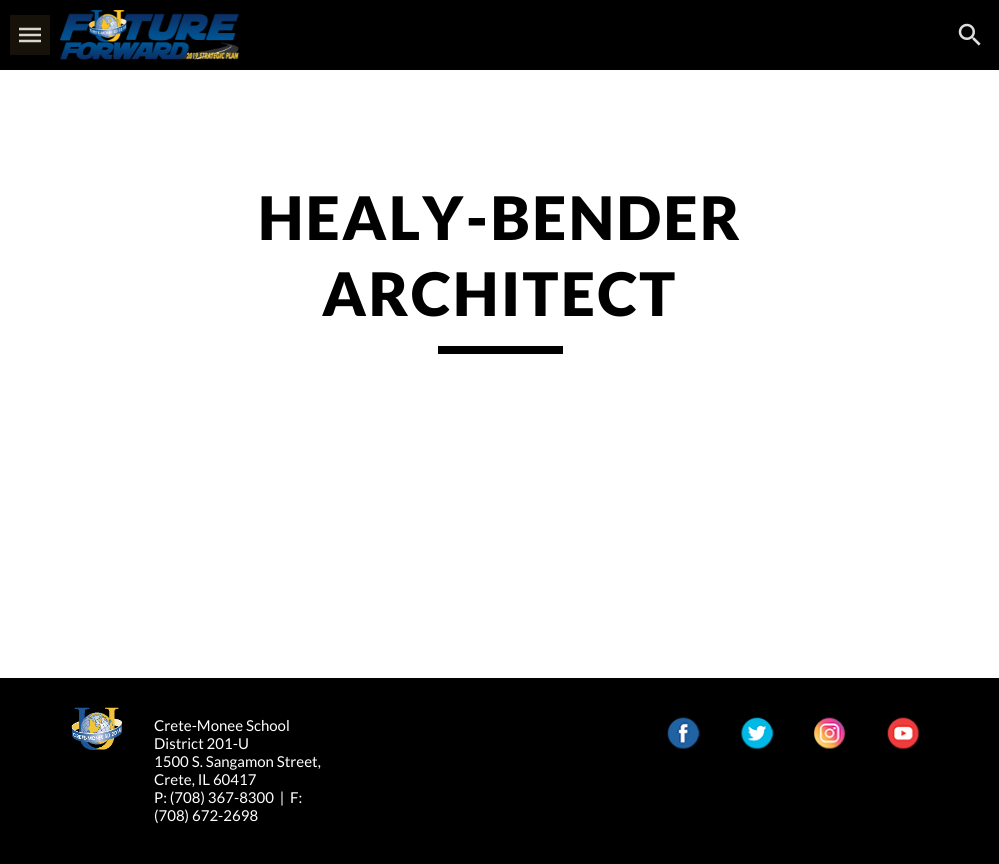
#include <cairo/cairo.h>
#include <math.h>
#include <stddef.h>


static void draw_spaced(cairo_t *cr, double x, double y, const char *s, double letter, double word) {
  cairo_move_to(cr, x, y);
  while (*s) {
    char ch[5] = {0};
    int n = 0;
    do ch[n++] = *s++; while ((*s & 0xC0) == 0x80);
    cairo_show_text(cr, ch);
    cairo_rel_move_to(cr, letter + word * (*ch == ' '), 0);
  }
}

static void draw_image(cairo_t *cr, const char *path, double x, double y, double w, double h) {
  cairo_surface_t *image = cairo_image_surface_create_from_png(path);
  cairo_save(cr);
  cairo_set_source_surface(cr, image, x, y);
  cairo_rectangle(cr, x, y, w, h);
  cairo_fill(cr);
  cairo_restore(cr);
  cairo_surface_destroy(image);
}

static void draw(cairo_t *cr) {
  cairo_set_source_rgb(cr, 1, 1, 1);
  cairo_paint(cr);
  cairo_set_source_rgb(cr, 0, 0, 0);
  cairo_rectangle(cr, 0, 0, 999, 70);
  cairo_fill(cr);
  cairo_set_source_rgb(cr, 22 / 255.0, 18 / 255.0, 10 / 255.0);
  cairo_rectangle(cr, 10, 15, 40, 40);
  cairo_fill(cr);
  draw_image(cr, "images/1.png", 60, 10, 180, 50);
  cairo_new_path(cr);
  cairo_move_to(cr, 19, 29);
  cairo_line_to(cr, 41, 29);
  cairo_move_to(cr, 19, 35);
  cairo_line_to(cr, 41, 35);
  cairo_move_to(cr, 19, 41);
  cairo_line_to(cr, 41, 41);
  cairo_set_source_rgb(cr, 217 / 255.0, 214 / 255.0, 205 / 255.0);
  cairo_set_line_width(cr, 2.5);
  cairo_stroke(cr);
  draw_image(cr, "images/2.png", 958, 23, 23, 23);
  cairo_set_source_rgb(cr, 0, 0, 0);
  cairo_rectangle(cr, 438, 346, 125, 8);
  cairo_fill(cr);
  cairo_rectangle(cr, 0, 678, 999, 186);
  cairo_fill(cr);
  draw_image(cr, "images/3.png", 71, 707, 51, 43);
  draw_image(cr, "images/4.png", 667, 717, 33, 32);
  draw_image(cr, "images/5.png", 741, 717, 33, 32);
  draw_image(cr, "images/6.png", 814, 717, 31, 32);
  draw_image(cr, "images/7.png", 887, 717, 32, 32);
  cairo_select_font_face(cr, "Lato Black", CAIRO_FONT_SLANT_NORMAL, CAIRO_FONT_WEIGHT_NORMAL);
  cairo_set_font_size(cr, 60);
  draw_spaced(cr, 258, 240, "HEALY-BENDER", 2.5, 0);
  draw_spaced(cr, 322, 316, "ARCHITECT", 2.5, 0);
  cairo_select_font_face(cr, "Lato", CAIRO_FONT_SLANT_NORMAL, CAIRO_FONT_WEIGHT_NORMAL);
  cairo_set_font_size(cr, 15);
  cairo_set_source_rgb(cr, 1, 1, 1);
  cairo_move_to(cr, 154, 731);
  cairo_show_text(cr, "Crete-Monee School");
  cairo_move_to(cr, 154, 749);
  cairo_show_text(cr, "District 201-U");
  cairo_move_to(cr, 154, 767);
  cairo_show_text(cr, "1500 S. Sangamon Street,");
  cairo_move_to(cr, 154, 785);
  cairo_show_text(cr, "Crete, IL 60417");
  cairo_move_to(cr, 154, 803);
  cairo_show_text(cr, "P: (708) 367-8300  |  F:");
  cairo_move_to(cr, 154, 821);
  cairo_show_text(cr, "(708) 672-2698");
}

int main(void) {
  cairo_surface_t *surface = cairo_image_surface_create(CAIRO_FORMAT_RGB24, 999, 864);
  cairo_t *cr = cairo_create(surface);
  cairo_font_options_t *options = cairo_font_options_create();
  cairo_font_options_set_hint_metrics(options, CAIRO_HINT_METRICS_OFF);
  cairo_font_options_set_hint_style(options, CAIRO_HINT_STYLE_NONE);
  cairo_set_font_options(cr, options);
  cairo_set_miter_limit(cr, 4);
  draw(cr);
  cairo_surface_write_to_png(surface, "out.png");
  cairo_font_options_destroy(options);
  cairo_destroy(cr);
  cairo_surface_destroy(surface);
  return 0;
}
